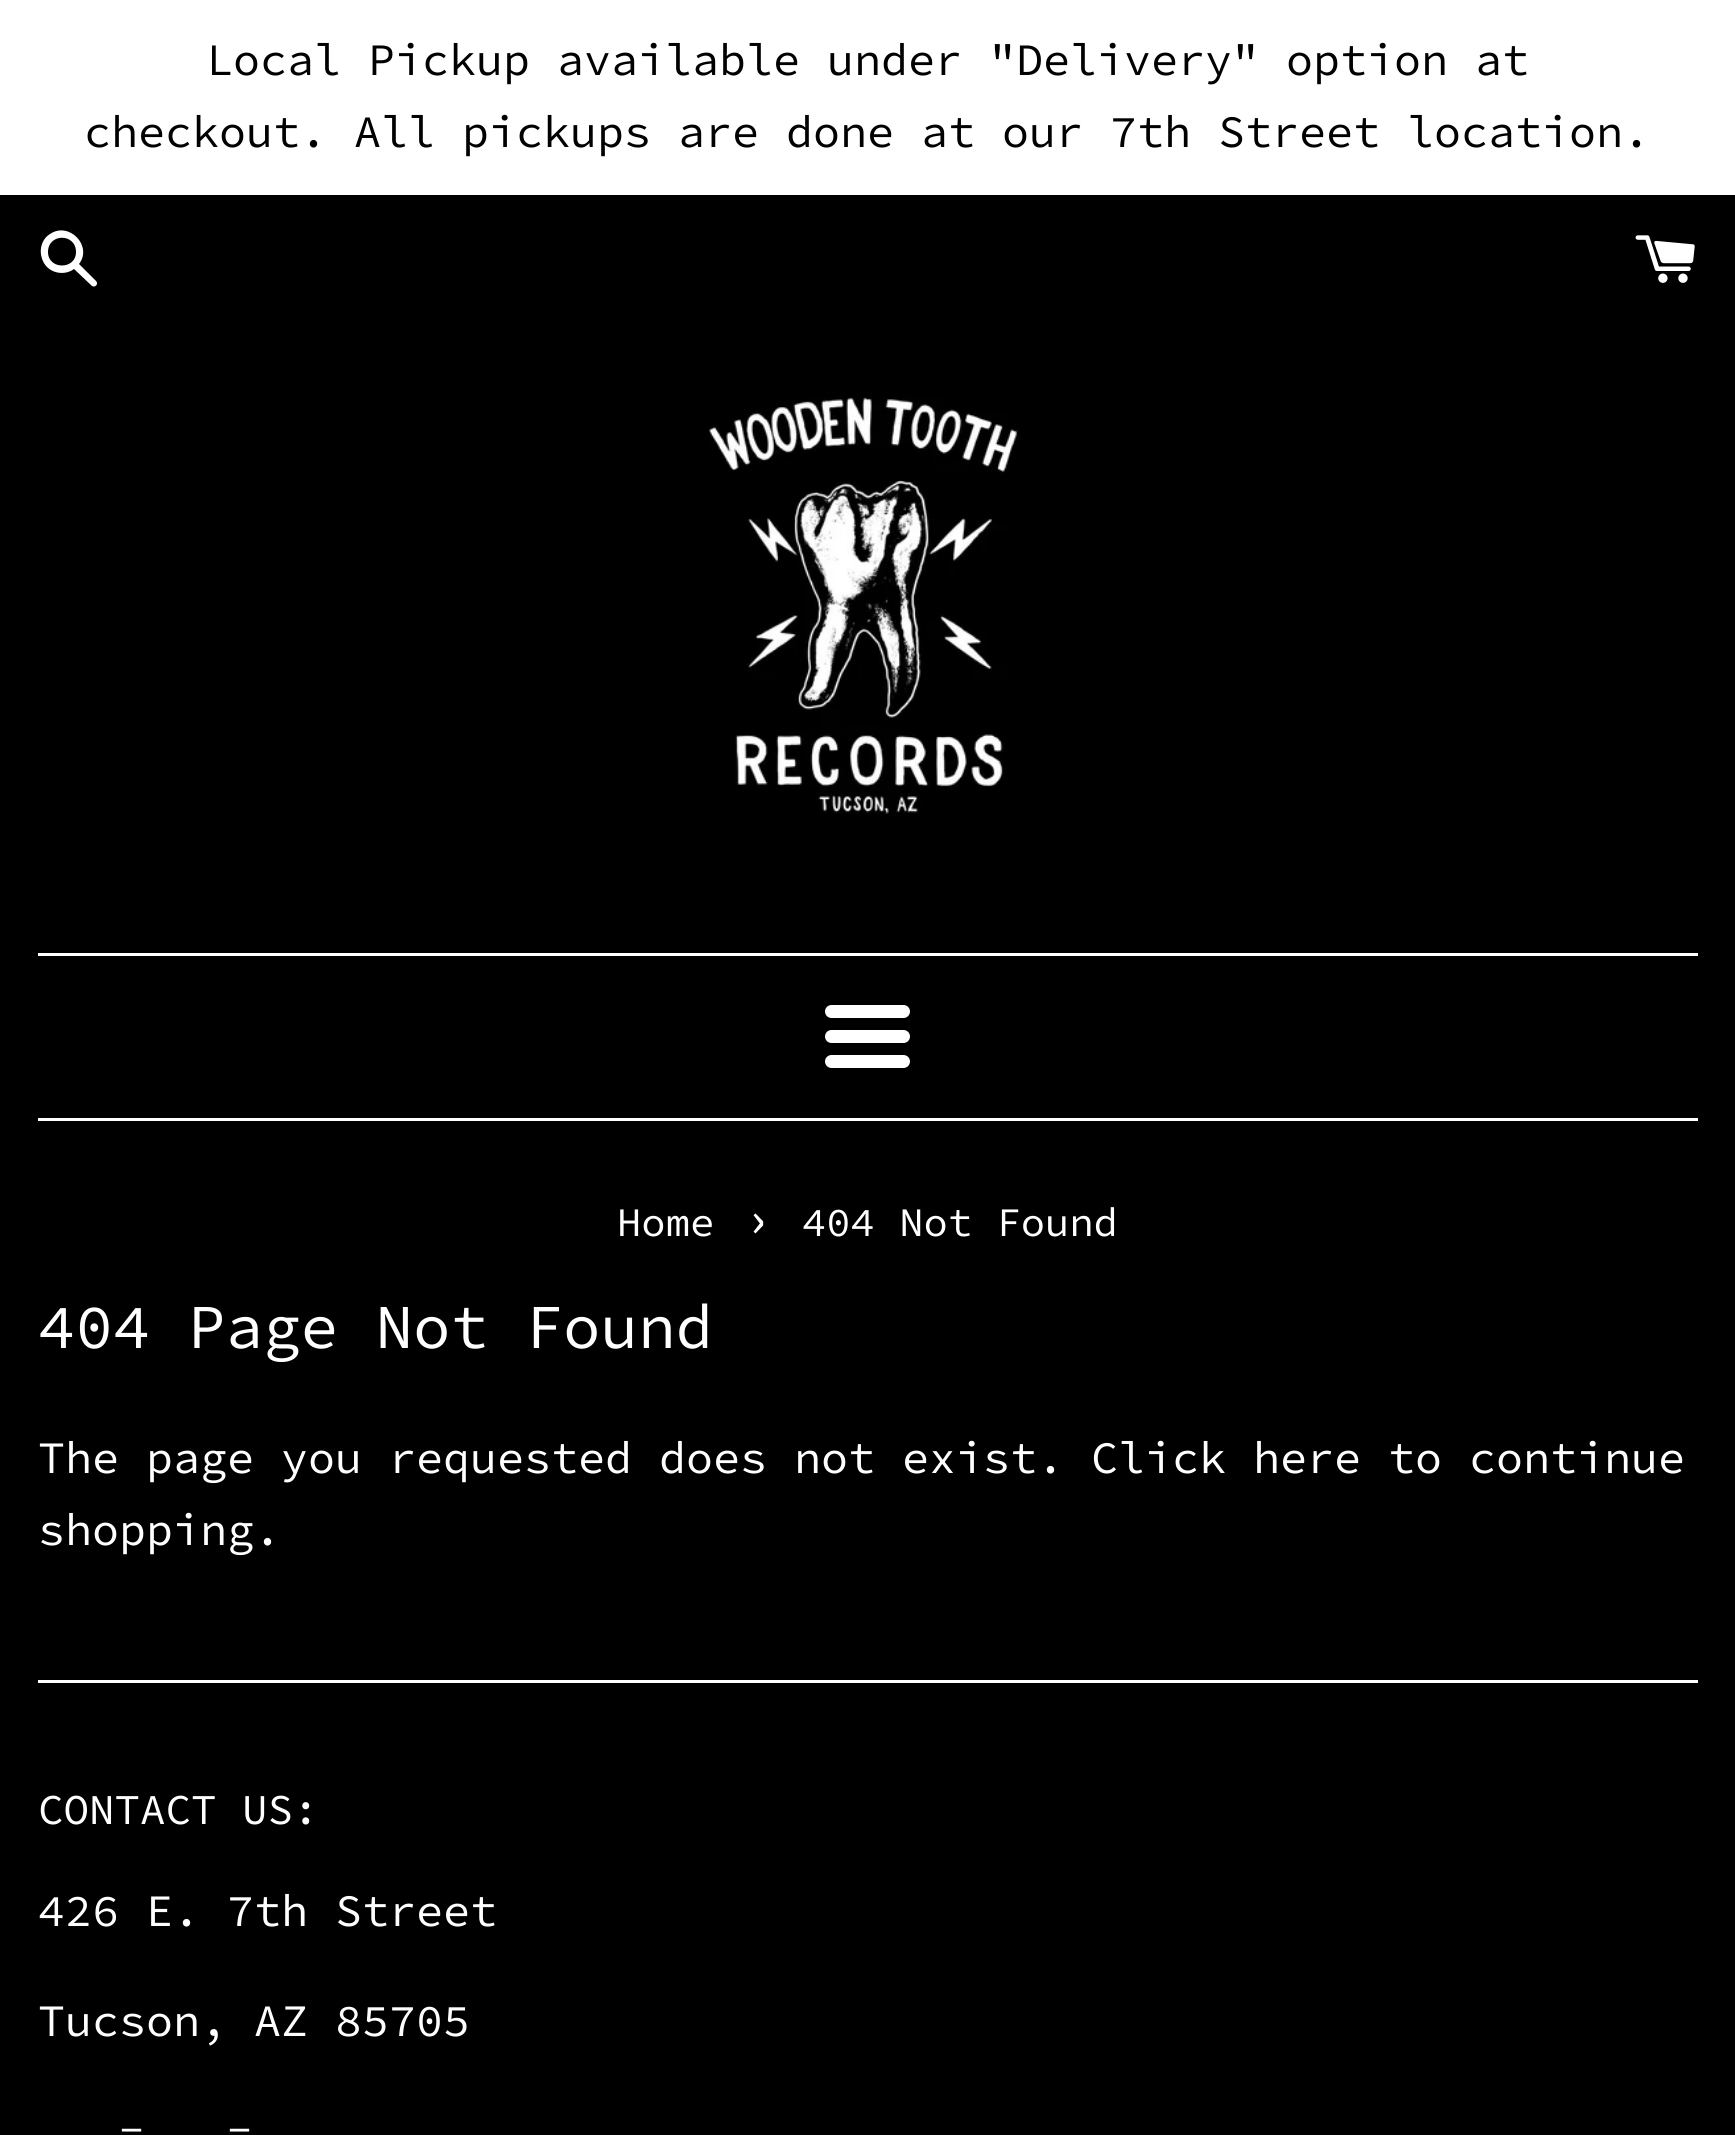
#include <cairo/cairo.h>
#include <math.h>
#include <stddef.h>


static void rounded_rect(cairo_t *cr, double x, double y, double w, double h, double r) {
  cairo_new_sub_path(cr);
  cairo_arc(cr, x + w - r, y + h - r, r, 0, M_PI / 2);
  cairo_arc(cr, x + r, y + h - r, r, M_PI / 2, M_PI);
  cairo_arc(cr, x + r, y + r, r, M_PI, 1.5 * M_PI);
  cairo_arc(cr, x + w - r, y + r, r, 1.5 * M_PI, 2 * M_PI);
  cairo_close_path(cr);
}

static void draw_image(cairo_t *cr, const char *path, double x, double y, double w, double h) {
  cairo_surface_t *image = cairo_image_surface_create_from_png(path);
  cairo_save(cr);
  cairo_set_source_surface(cr, image, x, y);
  cairo_rectangle(cr, x, y, w, h);
  cairo_fill(cr);
  cairo_restore(cr);
  cairo_surface_destroy(image);
}

static void draw(cairo_t *cr) {
  cairo_set_source_rgb(cr, 0, 0, 0);
  cairo_paint(cr);
  cairo_set_source_rgb(cr, 1, 1, 1);
  cairo_rectangle(cr, 0, 0, 1735, 195);
  cairo_fill(cr);
  cairo_new_path(cr);
  cairo_move_to(cr, 96, 281);
  cairo_line_to(cr, 79, 264);
  cairo_curve_to(cr, 93, 246, 69, 221, 50, 234);
  cairo_curve_to(cr, 45, 237, 42, 242, 41, 248);
  cairo_curve_to(cr, 40, 254, 42, 262, 47, 267);
  cairo_curve_to(cr, 54, 274, 66, 275, 74, 269);
  cairo_line_to(cr, 92, 286);
  cairo_curve_to(cr, 95, 288, 99, 284, 96, 281);
  cairo_close_path(cr);
  cairo_move_to(cr, 48, 252);
  cairo_curve_to(cr, 48, 233, 76, 233, 76, 252);
  cairo_curve_to(cr, 76, 270, 48, 270, 48, 252);
  cairo_close_path(cr);
  cairo_fill(cr);
  draw_image(cr, "images/1.png", 1635, 235, 60, 48);
  draw_image(cr, "images/2.png", 709, 397, 310, 417);
  cairo_rectangle(cr, 38, 953, 1660, 3);
  cairo_fill(cr);
  rounded_rect(cr, 825, 1005, 85, 13, 6.5);
  cairo_fill(cr);
  rounded_rect(cr, 825, 1030, 85, 13, 6.5);
  cairo_fill(cr);
  rounded_rect(cr, 825, 1055, 85, 13, 6.5);
  cairo_fill(cr);
  cairo_rectangle(cr, 38, 1118, 1660, 3);
  cairo_fill(cr);
  cairo_rectangle(cr, 38, 1680, 1660, 3);
  cairo_fill(cr);
  cairo_select_font_face(cr, "Source Code Pro", CAIRO_FONT_SLANT_NORMAL, CAIRO_FONT_WEIGHT_NORMAL);
  cairo_set_font_size(cr, 45);
  cairo_set_source_rgb(cr, 0, 0, 0);
  cairo_move_to(cr, 206, 75);
  cairo_show_text(cr, "Local Pickup available under \"Delivery\" option at");
  cairo_move_to(cr, 84, 147);
  cairo_show_text(cr, "checkout. All pickups are done at our 7th Street location.");
  cairo_set_font_size(cr, 40.5);
  cairo_set_source_rgb(cr, 1, 1, 1);
  cairo_move_to(cr, 617, 1236);
  cairo_show_text(cr, "Home");
  cairo_set_font_size(cr, 50);
  cairo_move_to(cr, 743, 1236);
  cairo_show_text(cr, "›");
  cairo_set_font_size(cr, 40.5);
  cairo_move_to(cr, 802, 1236);
  cairo_show_text(cr, "404 Not Found");
  cairo_set_font_size(cr, 62.5);
  cairo_move_to(cr, 38, 1348);
  cairo_show_text(cr, "404 Page Not Found");
  cairo_set_font_size(cr, 45);
  cairo_move_to(cr, 38, 1473);
  cairo_show_text(cr, "The page you requested does not exist. Click here to continue");
  cairo_move_to(cr, 38, 1545);
  cairo_show_text(cr, "shopping.");
  cairo_set_font_size(cr, 42.5);
  cairo_move_to(cr, 38, 1824);
  cairo_show_text(cr, "CONTACT US:");
  cairo_set_font_size(cr, 45);
  cairo_move_to(cr, 38, 1926);
  cairo_show_text(cr, "426 E. 7th Street");
  cairo_move_to(cr, 38, 2036);
  cairo_show_text(cr, "Tucson, AZ 85705");
  cairo_move_to(cr, 118, 2145);
  cairo_show_text(cr, "-");
  cairo_move_to(cr, 226, 2145);
  cairo_show_text(cr, "-");
}

int main(void) {
  cairo_surface_t *surface = cairo_image_surface_create(CAIRO_FORMAT_RGB24, 1735, 2135);
  cairo_t *cr = cairo_create(surface);
  cairo_font_options_t *options = cairo_font_options_create();
  cairo_font_options_set_hint_metrics(options, CAIRO_HINT_METRICS_OFF);
  cairo_font_options_set_hint_style(options, CAIRO_HINT_STYLE_NONE);
  cairo_set_font_options(cr, options);
  cairo_set_miter_limit(cr, 4);
  draw(cr);
  cairo_surface_write_to_png(surface, "out.png");
  cairo_font_options_destroy(options);
  cairo_destroy(cr);
  cairo_surface_destroy(surface);
  return 0;
}
